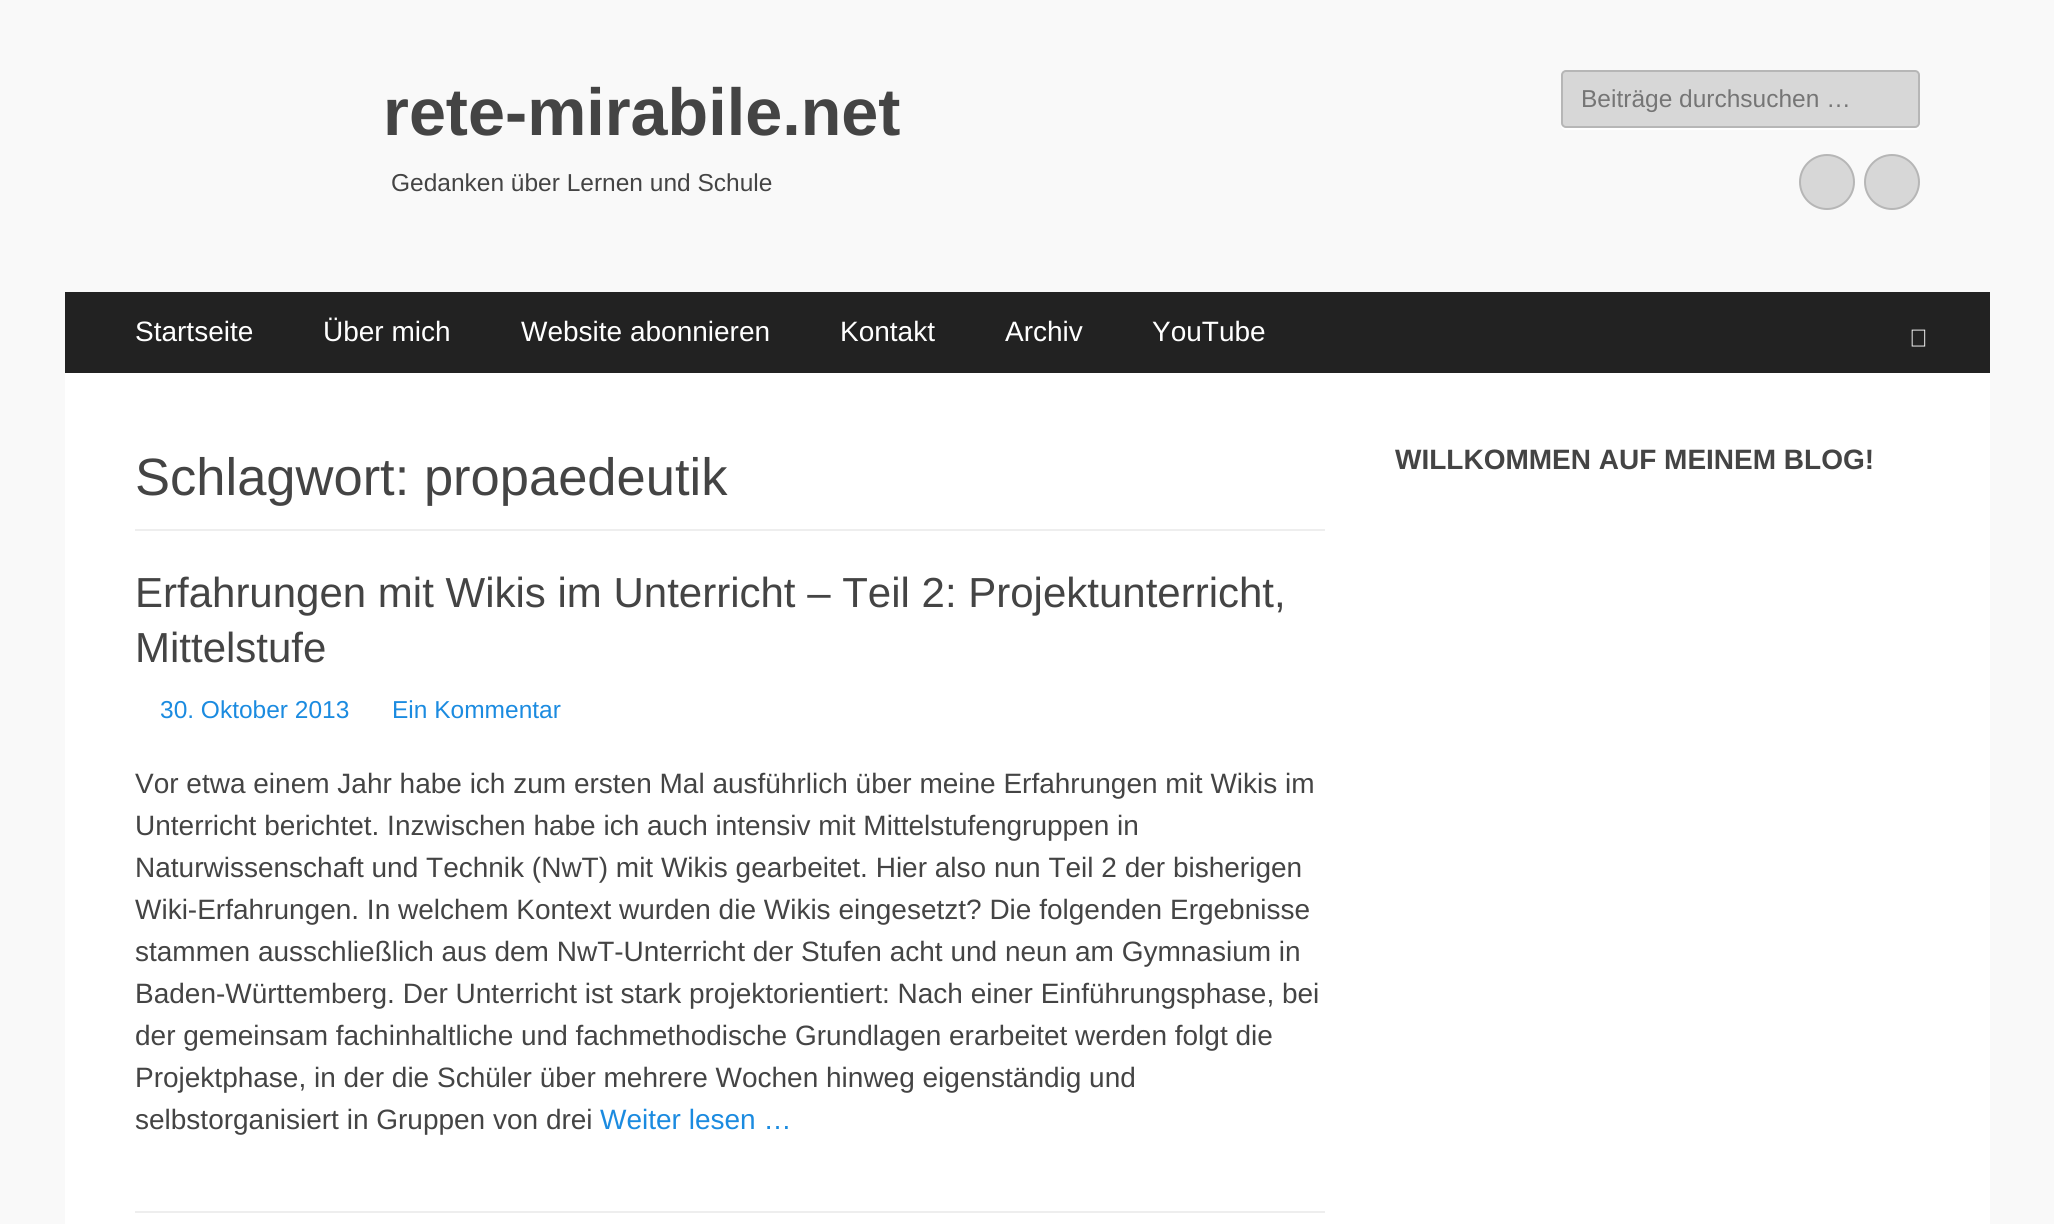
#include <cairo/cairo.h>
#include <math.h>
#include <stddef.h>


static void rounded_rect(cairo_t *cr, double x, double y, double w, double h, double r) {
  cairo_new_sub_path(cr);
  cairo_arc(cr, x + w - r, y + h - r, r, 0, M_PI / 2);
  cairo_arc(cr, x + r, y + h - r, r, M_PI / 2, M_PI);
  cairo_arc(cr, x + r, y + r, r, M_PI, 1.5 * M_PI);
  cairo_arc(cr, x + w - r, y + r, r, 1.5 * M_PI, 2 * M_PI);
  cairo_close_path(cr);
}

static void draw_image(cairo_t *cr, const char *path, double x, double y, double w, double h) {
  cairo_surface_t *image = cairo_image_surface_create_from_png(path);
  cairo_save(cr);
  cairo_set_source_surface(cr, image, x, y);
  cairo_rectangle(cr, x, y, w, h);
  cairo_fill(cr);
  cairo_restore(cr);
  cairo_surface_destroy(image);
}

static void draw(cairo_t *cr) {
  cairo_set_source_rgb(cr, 249 / 255.0, 249 / 255.0, 249 / 255.0);
  cairo_paint(cr);
  cairo_set_source_rgb(cr, 1, 1, 1);
  cairo_new_path(cr);
  cairo_move_to(cr, 1561, 122);
  cairo_line_to(cr, 1561, 125);
  cairo_curve_to(cr, 1561, 128, 1563, 130, 1566, 130);
  cairo_line_to(cr, 1915, 130);
  cairo_curve_to(cr, 1918, 130, 1920, 128, 1920, 125);
  cairo_line_to(cr, 1920, 75);
  cairo_line_to(cr, 1920, 122);
  cairo_curve_to(cr, 1920, 125, 1917, 128, 1914, 128);
  cairo_line_to(cr, 1566, 128);
  cairo_curve_to(cr, 1563, 128, 1561, 125, 1561, 122);
  cairo_close_path(cr);
  cairo_fill(cr);
  cairo_set_source_rgb(cr, 215 / 255.0, 215 / 255.0, 215 / 255.0);
  rounded_rect(cr, 1562, 71, 357, 56, 4);
  cairo_fill_preserve(cr);
  cairo_set_source_rgb(cr, 182 / 255.0, 182 / 255.0, 182 / 255.0);
  cairo_stroke(cr);
  cairo_set_source_rgb(cr, 215 / 255.0, 215 / 255.0, 215 / 255.0);
  cairo_arc(cr, 1827, 182, 27, 0, 2 * M_PI);
  cairo_fill_preserve(cr);
  cairo_set_source_rgb(cr, 182 / 255.0, 182 / 255.0, 182 / 255.0);
  cairo_stroke(cr);
  cairo_set_source_rgb(cr, 215 / 255.0, 215 / 255.0, 215 / 255.0);
  cairo_arc(cr, 1892, 182, 27, 0, 2 * M_PI);
  cairo_fill_preserve(cr);
  cairo_set_source_rgb(cr, 182 / 255.0, 182 / 255.0, 182 / 255.0);
  cairo_stroke(cr);
  cairo_set_source_rgb(cr, 34 / 255.0, 34 / 255.0, 34 / 255.0);
  cairo_rectangle(cr, 65, 292, 1925, 81);
  cairo_fill(cr);
  draw_image(cr, "images/1.png", 1911, 329, 15, 18);
  cairo_set_source_rgb(cr, 1, 1, 1);
  cairo_rectangle(cr, 65, 373, 1925, 851);
  cairo_fill(cr);
  cairo_set_source_rgb(cr, 238 / 255.0, 238 / 255.0, 238 / 255.0);
  cairo_rectangle(cr, 135, 529, 1190, 2);
  cairo_fill(cr);
  cairo_rectangle(cr, 135, 1211, 1190, 2);
  cairo_fill(cr);
  cairo_select_font_face(cr, "Liberation Sans", CAIRO_FONT_SLANT_NORMAL, CAIRO_FONT_WEIGHT_BOLD);
  cairo_set_font_size(cr, 66.5);
  cairo_set_source_rgb(cr, 68 / 255.0, 68 / 255.0, 68 / 255.0);
  cairo_move_to(cr, 383, 135);
  cairo_show_text(cr, "rete-mirabile.net");
  cairo_select_font_face(cr, "Liberation Sans", CAIRO_FONT_SLANT_NORMAL, CAIRO_FONT_WEIGHT_NORMAL);
  cairo_set_font_size(cr, 24.5);
  cairo_move_to(cr, 391, 191);
  cairo_show_text(cr, "Gedanken über Lernen und Schule");
  cairo_set_source_rgb(cr, 117 / 255.0, 117 / 255.0, 117 / 255.0);
  cairo_move_to(cr, 1581, 107);
  cairo_show_text(cr, "Beiträge durchsuchen …");
  cairo_set_font_size(cr, 28);
  cairo_set_source_rgb(cr, 1, 1, 1);
  cairo_move_to(cr, 135, 341);
  cairo_show_text(cr, "Startseite");
  cairo_move_to(cr, 323, 341);
  cairo_show_text(cr, "Über mich");
  cairo_move_to(cr, 521, 341);
  cairo_show_text(cr, "Website abonnieren");
  cairo_move_to(cr, 840, 341);
  cairo_show_text(cr, "Kontakt");
  cairo_move_to(cr, 1005, 341);
  cairo_show_text(cr, "Archiv");
  cairo_move_to(cr, 1152, 341);
  cairo_show_text(cr, "YouTube");
  cairo_set_font_size(cr, 52.5);
  cairo_set_source_rgb(cr, 68 / 255.0, 68 / 255.0, 68 / 255.0);
  cairo_move_to(cr, 135, 495);
  cairo_show_text(cr, "Schlagwort: propaedeutik");
  cairo_set_font_size(cr, 42);
  cairo_move_to(cr, 135, 607);
  cairo_show_text(cr, "Erfahrungen mit Wikis im Unterricht – Teil 2: Projektunterricht,");
  cairo_move_to(cr, 135, 662);
  cairo_show_text(cr, "Mittelstufe");
  cairo_set_font_size(cr, 24.5);
  cairo_set_source_rgb(cr, 27 / 255.0, 139 / 255.0, 224 / 255.0);
  cairo_move_to(cr, 160, 718);
  cairo_show_text(cr, "30. Oktober 2013");
  cairo_move_to(cr, 392, 718);
  cairo_show_text(cr, "Ein Kommentar");
  cairo_set_font_size(cr, 28);
  cairo_set_source_rgb(cr, 68 / 255.0, 68 / 255.0, 68 / 255.0);
  cairo_move_to(cr, 135, 793);
  cairo_show_text(cr, "Vor etwa einem Jahr habe ich zum ersten Mal ausführlich über meine Erfahrungen mit Wikis im");
  cairo_move_to(cr, 135, 835);
  cairo_show_text(cr, "Unterricht berichtet. Inzwischen habe ich auch intensiv mit Mittelstufengruppen in");
  cairo_move_to(cr, 135, 877);
  cairo_show_text(cr, "Naturwissenschaft und Technik (NwT) mit Wikis gearbeitet. Hier also nun Teil 2 der bisherigen");
  cairo_move_to(cr, 135, 919);
  cairo_show_text(cr, "Wiki-Erfahrungen. In welchem Kontext wurden die Wikis eingesetzt? Die folgenden Ergebnisse");
  cairo_move_to(cr, 135, 961);
  cairo_show_text(cr, "stammen ausschließlich aus dem NwT-Unterricht der Stufen acht und neun am Gymnasium in");
  cairo_move_to(cr, 135, 1003);
  cairo_show_text(cr, "Baden-Württemberg. Der Unterricht ist stark projektorientiert: Nach einer Einführungsphase, bei");
  cairo_move_to(cr, 135, 1045);
  cairo_show_text(cr, "der gemeinsam fachinhaltliche und fachmethodische Grundlagen erarbeitet werden folgt die");
  cairo_move_to(cr, 135, 1087);
  cairo_show_text(cr, "Projektphase, in der die Schüler über mehrere Wochen hinweg eigenständig und");
  cairo_move_to(cr, 135, 1129);
  cairo_show_text(cr, "selbstorganisiert in Gruppen von drei");
  cairo_set_source_rgb(cr, 27 / 255.0, 139 / 255.0, 224 / 255.0);
  cairo_move_to(cr, 600, 1129);
  cairo_show_text(cr, "Weiter lesen …");
  cairo_select_font_face(cr, "Liberation Sans", CAIRO_FONT_SLANT_NORMAL, CAIRO_FONT_WEIGHT_BOLD);
  cairo_set_source_rgb(cr, 68 / 255.0, 68 / 255.0, 68 / 255.0);
  cairo_move_to(cr, 1395, 469);
  cairo_show_text(cr, "WILLKOMMEN AUF MEINEM BLOG!");
}

int main(void) {
  cairo_surface_t *surface = cairo_image_surface_create(CAIRO_FORMAT_RGB24, 2054, 1224);
  cairo_t *cr = cairo_create(surface);
  cairo_font_options_t *options = cairo_font_options_create();
  cairo_font_options_set_hint_metrics(options, CAIRO_HINT_METRICS_OFF);
  cairo_font_options_set_hint_style(options, CAIRO_HINT_STYLE_NONE);
  cairo_set_font_options(cr, options);
  cairo_set_miter_limit(cr, 4);
  draw(cr);
  cairo_surface_write_to_png(surface, "out.png");
  cairo_font_options_destroy(options);
  cairo_destroy(cr);
  cairo_surface_destroy(surface);
  return 0;
}
